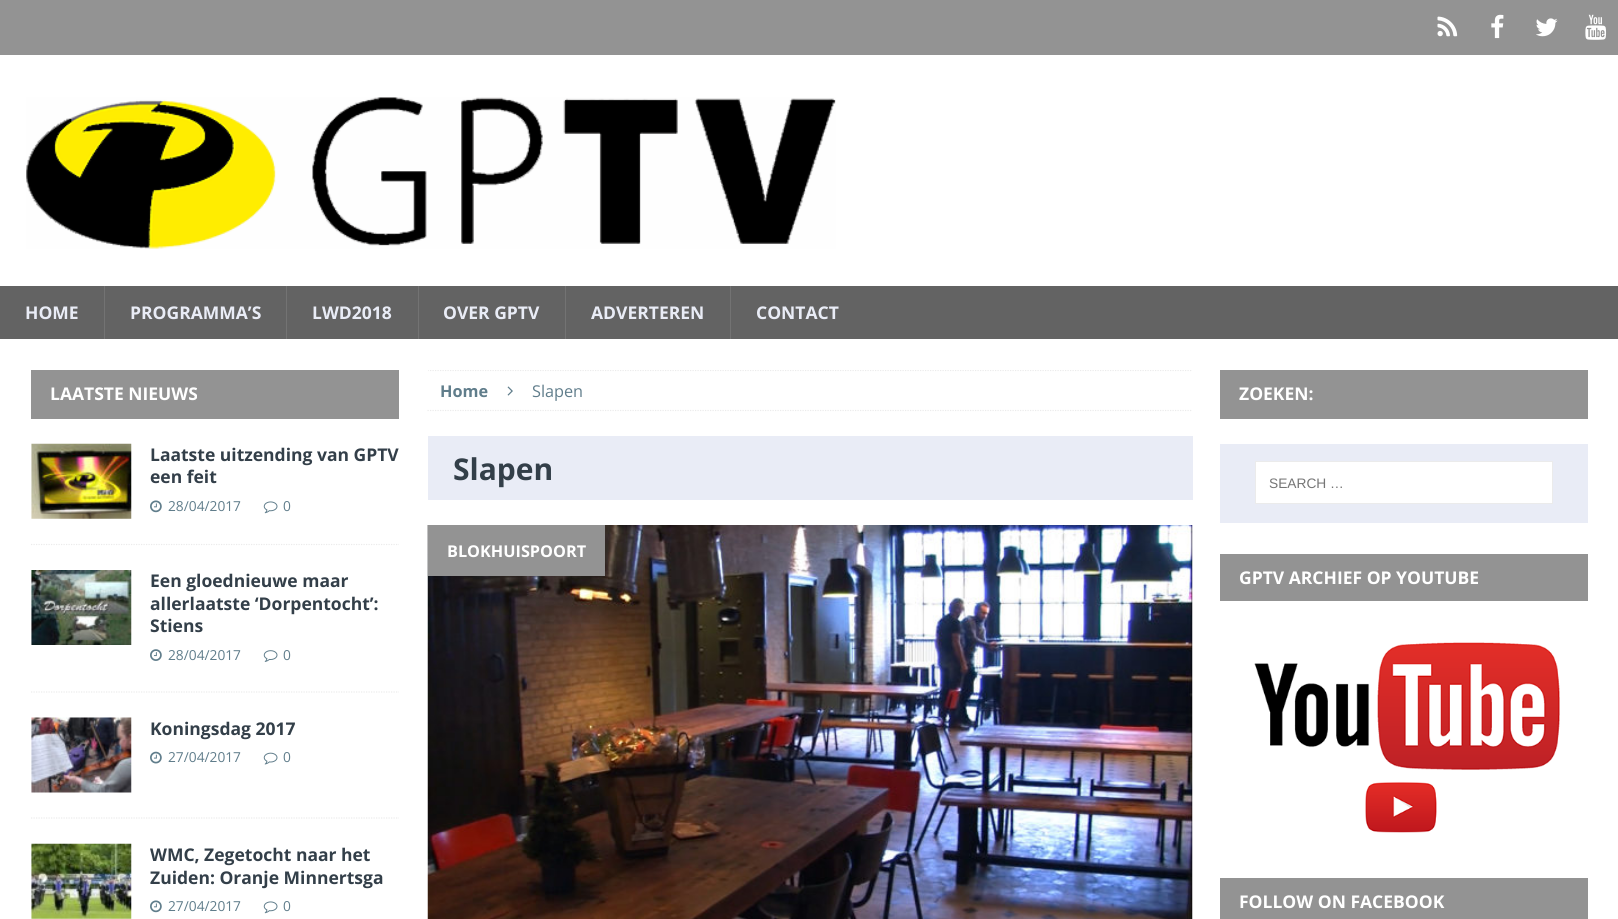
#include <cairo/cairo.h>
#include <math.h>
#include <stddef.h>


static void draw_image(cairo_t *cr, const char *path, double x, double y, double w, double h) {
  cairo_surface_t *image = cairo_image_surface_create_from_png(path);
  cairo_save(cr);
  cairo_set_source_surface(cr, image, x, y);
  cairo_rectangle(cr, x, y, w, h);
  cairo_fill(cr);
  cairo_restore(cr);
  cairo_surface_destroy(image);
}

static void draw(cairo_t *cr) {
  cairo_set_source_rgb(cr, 147 / 255.0, 147 / 255.0, 147 / 255.0);
  cairo_paint(cr);
  draw_image(cr, "images/1.png", 1437, 16, 21, 21);
  draw_image(cr, "images/2.png", 1491, 14, 13, 25);
  draw_image(cr, "images/3.png", 1536, 18, 22, 19);
  draw_image(cr, "images/4.png", 1585, 14, 22, 26);
  cairo_set_source_rgb(cr, 1, 1, 1);
  cairo_rectangle(cr, 0, 55, 1618, 231);
  cairo_fill(cr);
  draw_image(cr, "images/5.png", 26, 97, 810, 152);
  cairo_set_source_rgb(cr, 99 / 255.0, 99 / 255.0, 99 / 255.0);
  cairo_rectangle(cr, 0, 286, 1618, 53);
  cairo_fill(cr);
  cairo_set_source_rgb(cr, 115 / 255.0, 115 / 255.0, 115 / 255.0);
  cairo_rectangle(cr, 104, 286, 1, 53);
  cairo_fill(cr);
  cairo_rectangle(cr, 286, 286, 1, 53);
  cairo_fill(cr);
  cairo_rectangle(cr, 418, 286, 1, 53);
  cairo_fill(cr);
  cairo_rectangle(cr, 565, 286, 1, 53);
  cairo_fill(cr);
  cairo_rectangle(cr, 730, 286, 1, 53);
  cairo_fill(cr);
  cairo_set_source_rgb(cr, 1, 1, 1);
  cairo_rectangle(cr, 0, 339, 1618, 580);
  cairo_fill(cr);
  cairo_set_source_rgb(cr, 147 / 255.0, 147 / 255.0, 147 / 255.0);
  cairo_rectangle(cr, 31, 370, 368, 49);
  cairo_fill(cr);
  cairo_new_path(cr);
  cairo_move_to(cr, 31, 544.5);
  cairo_line_to(cr, 399, 544.5);
  cairo_set_source_rgb(cr, 235 / 255.0, 235 / 255.0, 235 / 255.0);
  cairo_set_line_width(cr, 1.2);
  cairo_set_dash(cr, (double[]){1.25, 1.25}, 2, 0);
  cairo_stroke(cr);
  draw_image(cr, "images/6.png", 31, 443, 101, 76);
  draw_image(cr, "images/7.png", 150, 500, 12, 13);
  draw_image(cr, "images/8.png", 263, 501, 15, 13);
  cairo_new_path(cr);
  cairo_move_to(cr, 31, 692);
  cairo_line_to(cr, 399, 692);
  cairo_stroke(cr);
  draw_image(cr, "images/9.png", 31, 570, 101, 75);
  draw_image(cr, "images/10.png", 150, 649, 12, 12);
  draw_image(cr, "images/11.png", 263, 650, 15, 12);
  cairo_new_path(cr);
  cairo_move_to(cr, 31, 818);
  cairo_line_to(cr, 399, 818);
  cairo_stroke(cr);
  draw_image(cr, "images/12.png", 31, 717, 101, 76);
  draw_image(cr, "images/13.png", 150, 751, 12, 13);
  draw_image(cr, "images/14.png", 263, 752, 15, 13);
  draw_image(cr, "images/15.png", 31, 843, 101, 76);
  draw_image(cr, "images/7.png", 150, 900, 12, 13);
  draw_image(cr, "images/8.png", 263, 901, 15, 13);
  cairo_save(cr);
  cairo_rectangle(cr, 428, 370, 765, 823);
  cairo_clip(cr);
  cairo_new_path(cr);
  cairo_move_to(cr, 427.5, 370.5);
  cairo_line_to(cr, 1192.5, 370.5);
  cairo_stroke(cr);
  cairo_restore(cr);
  cairo_new_path(cr);
  cairo_move_to(cr, 427.5, 410.5);
  cairo_line_to(cr, 1192.5, 410.5);
  cairo_stroke(cr);
  draw_image(cr, "images/16.png", 507, 386, 6, 10);
  cairo_set_source_rgb(cr, 233 / 255.0, 236 / 255.0, 246 / 255.0);
  cairo_rectangle(cr, 428, 436, 765, 64);
  cairo_fill(cr);
  draw_image(cr, "images/17.png", 427, 525, 766, 394);
  cairo_set_source_rgb(cr, 147 / 255.0, 147 / 255.0, 147 / 255.0);
  cairo_rectangle(cr, 428, 525, 177, 51);
  cairo_fill(cr);
  cairo_rectangle(cr, 1220, 370, 368, 49);
  cairo_fill(cr);
  cairo_set_source_rgb(cr, 233 / 255.0, 236 / 255.0, 246 / 255.0);
  cairo_rectangle(cr, 1220, 444, 368, 79);
  cairo_fill(cr);
  cairo_set_source_rgb(cr, 1, 1, 1);
  cairo_rectangle(cr, 1255.5, 461.5, 297, 42);
  cairo_fill_preserve(cr);
  cairo_set_source_rgb(cr, 235 / 255.0, 235 / 255.0, 235 / 255.0);
  cairo_set_line_width(cr, 1);
  cairo_set_dash(cr, NULL, 0, 0);
  cairo_stroke(cr);
  cairo_set_source_rgb(cr, 147 / 255.0, 147 / 255.0, 147 / 255.0);
  cairo_rectangle(cr, 1220, 554, 368, 47);
  cairo_fill(cr);
  draw_image(cr, "images/18.png", 1254, 642, 306, 191);
  cairo_rectangle(cr, 1220, 878, 368, 41);
  cairo_fill(cr);
  cairo_select_font_face(cr, "Open Sans", CAIRO_FONT_SLANT_NORMAL, CAIRO_FONT_WEIGHT_BOLD);
  cairo_set_font_size(cr, 17.5);
  cairo_set_source_rgb(cr, 233 / 255.0, 236 / 255.0, 246 / 255.0);
  cairo_move_to(cr, 25, 319);
  cairo_show_text(cr, "HOME");
  cairo_move_to(cr, 130, 319);
  cairo_show_text(cr, "PROGRAMMA’S");
  cairo_move_to(cr, 312, 319);
  cairo_show_text(cr, "LWD2018");
  cairo_move_to(cr, 443, 319);
  cairo_show_text(cr, "OVER GPTV");
  cairo_move_to(cr, 591, 319);
  cairo_show_text(cr, "ADVERTEREN");
  cairo_move_to(cr, 756, 319);
  cairo_show_text(cr, "CONTACT");
  cairo_set_source_rgb(cr, 1, 1, 1);
  cairo_move_to(cr, 50, 400);
  cairo_show_text(cr, "LAATSTE NIEUWS");
  cairo_set_source_rgb(cr, 51 / 255.0, 63 / 255.0, 73 / 255.0);
  cairo_move_to(cr, 150, 461);
  cairo_show_text(cr, "Laatste uitzending van GPTV");
  cairo_move_to(cr, 150, 483);
  cairo_show_text(cr, "een feit");
  cairo_select_font_face(cr, "Open Sans", CAIRO_FONT_SLANT_NORMAL, CAIRO_FONT_WEIGHT_NORMAL);
  cairo_set_font_size(cr, 13.75);
  cairo_set_source_rgb(cr, 96 / 255.0, 125 / 255.0, 139 / 255.0);
  cairo_move_to(cr, 168, 511);
  cairo_show_text(cr, "28/04/2017");
  cairo_move_to(cr, 283, 511);
  cairo_show_text(cr, "0");
  cairo_select_font_face(cr, "Open Sans", CAIRO_FONT_SLANT_NORMAL, CAIRO_FONT_WEIGHT_BOLD);
  cairo_set_font_size(cr, 17.5);
  cairo_set_source_rgb(cr, 51 / 255.0, 63 / 255.0, 73 / 255.0);
  cairo_move_to(cr, 150, 587);
  cairo_show_text(cr, "Een gloednieuwe maar");
  cairo_move_to(cr, 150, 610);
  cairo_show_text(cr, "allerlaatste ‘Dorpentocht’:");
  cairo_move_to(cr, 150, 632);
  cairo_show_text(cr, "Stiens");
  cairo_select_font_face(cr, "Open Sans", CAIRO_FONT_SLANT_NORMAL, CAIRO_FONT_WEIGHT_NORMAL);
  cairo_set_font_size(cr, 13.75);
  cairo_set_source_rgb(cr, 96 / 255.0, 125 / 255.0, 139 / 255.0);
  cairo_move_to(cr, 168, 660);
  cairo_show_text(cr, "28/04/2017");
  cairo_move_to(cr, 283, 660);
  cairo_show_text(cr, "0");
  cairo_select_font_face(cr, "Open Sans", CAIRO_FONT_SLANT_NORMAL, CAIRO_FONT_WEIGHT_BOLD);
  cairo_set_font_size(cr, 17.5);
  cairo_set_source_rgb(cr, 51 / 255.0, 63 / 255.0, 73 / 255.0);
  cairo_move_to(cr, 150, 735);
  cairo_show_text(cr, "Koningsdag 2017");
  cairo_select_font_face(cr, "Open Sans", CAIRO_FONT_SLANT_NORMAL, CAIRO_FONT_WEIGHT_NORMAL);
  cairo_set_font_size(cr, 13.75);
  cairo_set_source_rgb(cr, 96 / 255.0, 125 / 255.0, 139 / 255.0);
  cairo_move_to(cr, 168, 762);
  cairo_show_text(cr, "27/04/2017");
  cairo_move_to(cr, 283, 762);
  cairo_show_text(cr, "0");
  cairo_select_font_face(cr, "Open Sans", CAIRO_FONT_SLANT_NORMAL, CAIRO_FONT_WEIGHT_BOLD);
  cairo_set_font_size(cr, 17.5);
  cairo_set_source_rgb(cr, 51 / 255.0, 63 / 255.0, 73 / 255.0);
  cairo_move_to(cr, 150, 861);
  cairo_show_text(cr, "WMC, Zegetocht naar het");
  cairo_move_to(cr, 150, 884);
  cairo_show_text(cr, "Zuiden: Oranje Minnertsga");
  cairo_select_font_face(cr, "Open Sans", CAIRO_FONT_SLANT_NORMAL, CAIRO_FONT_WEIGHT_NORMAL);
  cairo_set_font_size(cr, 13.75);
  cairo_set_source_rgb(cr, 96 / 255.0, 125 / 255.0, 139 / 255.0);
  cairo_move_to(cr, 168, 911);
  cairo_show_text(cr, "27/04/2017");
  cairo_move_to(cr, 283, 911);
  cairo_show_text(cr, "0");
  cairo_select_font_face(cr, "Open Sans", CAIRO_FONT_SLANT_NORMAL, CAIRO_FONT_WEIGHT_BOLD);
  cairo_set_font_size(cr, 16.25);
  cairo_move_to(cr, 440, 397);
  cairo_show_text(cr, "Home");
  cairo_select_font_face(cr, "Open Sans", CAIRO_FONT_SLANT_NORMAL, CAIRO_FONT_WEIGHT_NORMAL);
  cairo_move_to(cr, 532, 397);
  cairo_show_text(cr, "Slapen");
  cairo_select_font_face(cr, "Open Sans", CAIRO_FONT_SLANT_NORMAL, CAIRO_FONT_WEIGHT_BOLD);
  cairo_set_font_size(cr, 30);
  cairo_set_source_rgb(cr, 51 / 255.0, 63 / 255.0, 73 / 255.0);
  cairo_move_to(cr, 453, 480);
  cairo_show_text(cr, "Slapen");
  cairo_set_font_size(cr, 16.25);
  cairo_set_source_rgb(cr, 1, 1, 1);
  cairo_move_to(cr, 447, 557);
  cairo_show_text(cr, "BLOKHUISPOORT");
  cairo_set_font_size(cr, 17.5);
  cairo_move_to(cr, 1239, 400);
  cairo_show_text(cr, "ZOEKEN:");
  cairo_select_font_face(cr, "Liberation Sans", CAIRO_FONT_SLANT_NORMAL, CAIRO_FONT_WEIGHT_NORMAL);
  cairo_set_font_size(cr, 13.75);
  cairo_set_source_rgb(cr, 117 / 255.0, 117 / 255.0, 117 / 255.0);
  cairo_move_to(cr, 1269, 488);
  cairo_show_text(cr, "SEARCH …");
  cairo_select_font_face(cr, "Open Sans", CAIRO_FONT_SLANT_NORMAL, CAIRO_FONT_WEIGHT_BOLD);
  cairo_set_font_size(cr, 17.5);
  cairo_set_source_rgb(cr, 1, 1, 1);
  cairo_move_to(cr, 1239, 584);
  cairo_show_text(cr, "GPTV ARCHIEF OP YOUTUBE");
  cairo_move_to(cr, 1239, 908);
  cairo_show_text(cr, "FOLLOW ON FACEBOOK");
}

int main(void) {
  cairo_surface_t *surface = cairo_image_surface_create(CAIRO_FORMAT_RGB24, 1618, 919);
  cairo_t *cr = cairo_create(surface);
  cairo_font_options_t *options = cairo_font_options_create();
  cairo_font_options_set_hint_metrics(options, CAIRO_HINT_METRICS_OFF);
  cairo_font_options_set_hint_style(options, CAIRO_HINT_STYLE_NONE);
  cairo_set_font_options(cr, options);
  cairo_set_miter_limit(cr, 4);
  draw(cr);
  cairo_surface_write_to_png(surface, "out.png");
  cairo_font_options_destroy(options);
  cairo_destroy(cr);
  cairo_surface_destroy(surface);
  return 0;
}
